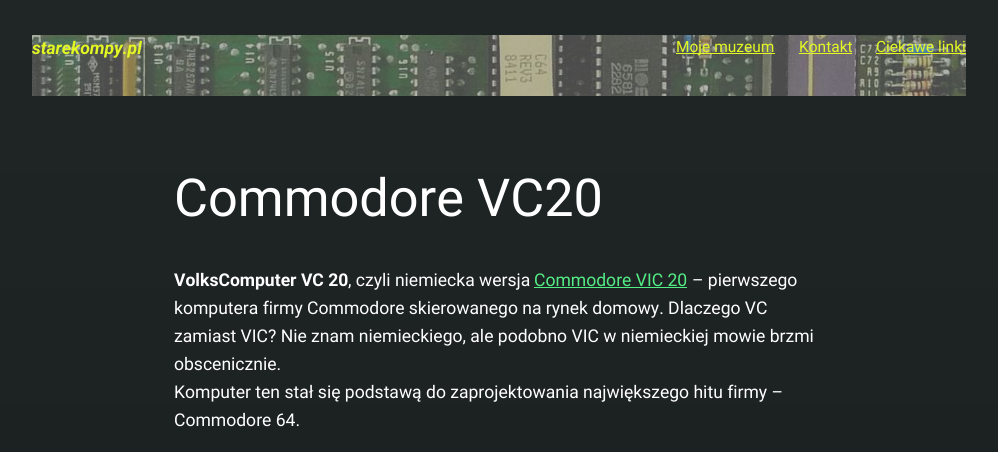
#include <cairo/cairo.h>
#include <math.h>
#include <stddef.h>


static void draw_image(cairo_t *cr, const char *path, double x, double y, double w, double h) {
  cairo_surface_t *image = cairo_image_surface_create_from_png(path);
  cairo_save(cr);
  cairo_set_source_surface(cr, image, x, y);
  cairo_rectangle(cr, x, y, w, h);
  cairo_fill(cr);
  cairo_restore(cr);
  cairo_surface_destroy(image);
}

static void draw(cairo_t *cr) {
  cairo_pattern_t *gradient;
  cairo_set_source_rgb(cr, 1, 1, 1);
  cairo_paint(cr);
  gradient = cairo_pattern_create_linear(499, 0, 499, 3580);
  cairo_pattern_add_color_stop_rgba(gradient, 0, 32 / 255.0, 38 / 255.0, 38 / 255.0, 1);
  cairo_pattern_add_color_stop_rgba(gradient, 1, 1 / 255.0, 1 / 255.0, 1 / 255.0, 1);
  cairo_set_source(cr, gradient);
  cairo_pattern_destroy(gradient);
  cairo_rectangle(cr, 0, 0, 998, 452);
  cairo_fill(cr);
  draw_image(cr, "images/1.png", 32, 35, 934, 61);
  cairo_set_source_rgb(cr, 227 / 255.0, 248 / 255.0, 35 / 255.0);
  cairo_rectangle(cr, 676, 53, 99, 1);
  cairo_fill(cr);
  cairo_rectangle(cr, 799, 53, 53, 1);
  cairo_fill(cr);
  cairo_rectangle(cr, 876, 53, 90, 1);
  cairo_fill(cr);
  cairo_set_source_rgb(cr, 83 / 255.0, 237 / 255.0, 133 / 255.0);
  cairo_rectangle(cr, 534, 287, 153, 1);
  cairo_fill(cr);
  cairo_select_font_face(cr, "Roboto", CAIRO_FONT_SLANT_ITALIC, CAIRO_FONT_WEIGHT_BOLD);
  cairo_set_font_size(cr, 17.55);
  cairo_set_source_rgb(cr, 227 / 255.0, 248 / 255.0, 35 / 255.0);
  cairo_move_to(cr, 32, 54);
  cairo_show_text(cr, "starekompy.pl");
  cairo_select_font_face(cr, "Roboto", CAIRO_FONT_SLANT_NORMAL, CAIRO_FONT_WEIGHT_NORMAL);
  cairo_set_font_size(cr, 15.5);
  cairo_move_to(cr, 676, 52);
  cairo_show_text(cr, "Moje muzeum");
  cairo_move_to(cr, 799, 52);
  cairo_show_text(cr, "Kontakt");
  cairo_move_to(cr, 876, 52);
  cairo_show_text(cr, "Ciekawe linki");
  cairo_set_font_size(cr, 52.25);
  cairo_set_source_rgb(cr, 1, 1, 1);
  cairo_move_to(cr, 174, 216);
  cairo_show_text(cr, "Commodore VC20");
  cairo_select_font_face(cr, "Roboto", CAIRO_FONT_SLANT_NORMAL, CAIRO_FONT_WEIGHT_BOLD);
  cairo_set_font_size(cr, 17.55);
  cairo_move_to(cr, 174, 286);
  cairo_show_text(cr, "VolksComputer VC 20");
  cairo_select_font_face(cr, "Roboto", CAIRO_FONT_SLANT_NORMAL, CAIRO_FONT_WEIGHT_NORMAL);
  cairo_move_to(cr, 348, 286);
  cairo_show_text(cr, ", czyli niemiecka wersja");
  cairo_set_source_rgb(cr, 83 / 255.0, 237 / 255.0, 133 / 255.0);
  cairo_move_to(cr, 534, 286);
  cairo_show_text(cr, "Commodore VIC 20");
  cairo_set_source_rgb(cr, 1, 1, 1);
  cairo_move_to(cr, 692, 286);
  cairo_show_text(cr, "– pierwszego");
  cairo_move_to(cr, 174, 314);
  cairo_show_text(cr, "komputera firmy Commodore skierowanego na rynek domowy. Dlaczego VC");
  cairo_move_to(cr, 174, 342);
  cairo_show_text(cr, "zamiast VIC? Nie znam niemieckiego, ale podobno VIC w niemieckiej mowie brzmi");
  cairo_move_to(cr, 174, 370);
  cairo_show_text(cr, "obscenicznie.");
  cairo_move_to(cr, 174, 398);
  cairo_show_text(cr, "Komputer ten stał się podstawą do zaprojektowania największego hitu firmy –");
  cairo_move_to(cr, 174, 426);
  cairo_show_text(cr, "Commodore 64.");
}

int main(void) {
  cairo_surface_t *surface = cairo_image_surface_create(CAIRO_FORMAT_RGB24, 998, 452);
  cairo_t *cr = cairo_create(surface);
  cairo_font_options_t *options = cairo_font_options_create();
  cairo_font_options_set_hint_metrics(options, CAIRO_HINT_METRICS_OFF);
  cairo_font_options_set_hint_style(options, CAIRO_HINT_STYLE_NONE);
  cairo_set_font_options(cr, options);
  cairo_set_miter_limit(cr, 4);
  draw(cr);
  cairo_surface_write_to_png(surface, "out.png");
  cairo_font_options_destroy(options);
  cairo_destroy(cr);
  cairo_surface_destroy(surface);
  return 0;
}
